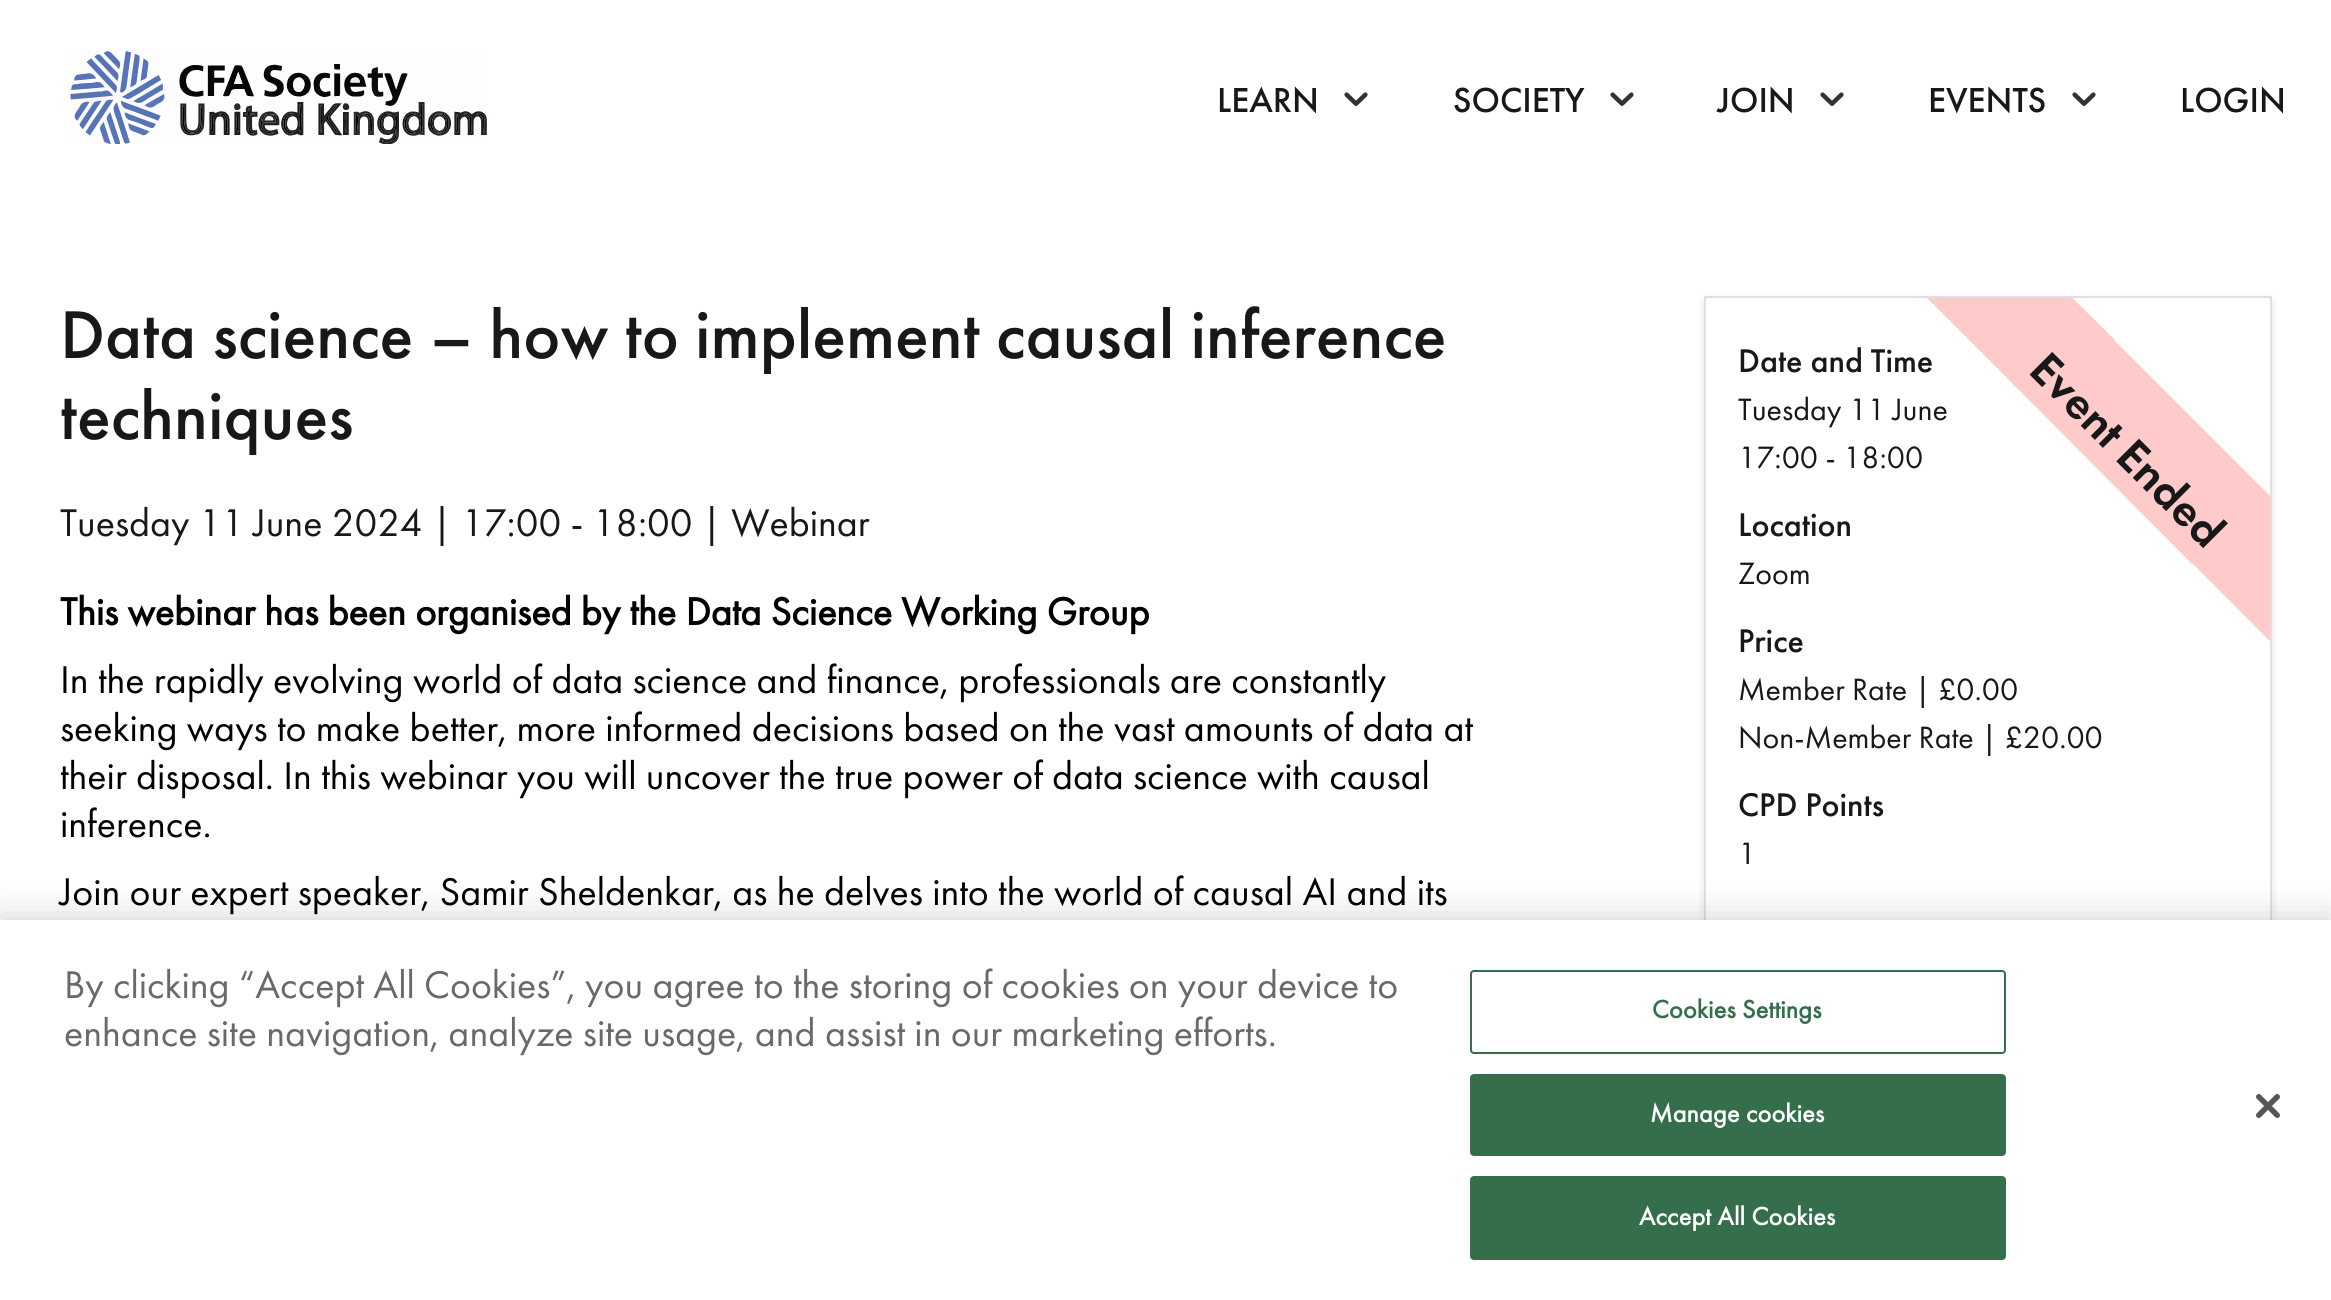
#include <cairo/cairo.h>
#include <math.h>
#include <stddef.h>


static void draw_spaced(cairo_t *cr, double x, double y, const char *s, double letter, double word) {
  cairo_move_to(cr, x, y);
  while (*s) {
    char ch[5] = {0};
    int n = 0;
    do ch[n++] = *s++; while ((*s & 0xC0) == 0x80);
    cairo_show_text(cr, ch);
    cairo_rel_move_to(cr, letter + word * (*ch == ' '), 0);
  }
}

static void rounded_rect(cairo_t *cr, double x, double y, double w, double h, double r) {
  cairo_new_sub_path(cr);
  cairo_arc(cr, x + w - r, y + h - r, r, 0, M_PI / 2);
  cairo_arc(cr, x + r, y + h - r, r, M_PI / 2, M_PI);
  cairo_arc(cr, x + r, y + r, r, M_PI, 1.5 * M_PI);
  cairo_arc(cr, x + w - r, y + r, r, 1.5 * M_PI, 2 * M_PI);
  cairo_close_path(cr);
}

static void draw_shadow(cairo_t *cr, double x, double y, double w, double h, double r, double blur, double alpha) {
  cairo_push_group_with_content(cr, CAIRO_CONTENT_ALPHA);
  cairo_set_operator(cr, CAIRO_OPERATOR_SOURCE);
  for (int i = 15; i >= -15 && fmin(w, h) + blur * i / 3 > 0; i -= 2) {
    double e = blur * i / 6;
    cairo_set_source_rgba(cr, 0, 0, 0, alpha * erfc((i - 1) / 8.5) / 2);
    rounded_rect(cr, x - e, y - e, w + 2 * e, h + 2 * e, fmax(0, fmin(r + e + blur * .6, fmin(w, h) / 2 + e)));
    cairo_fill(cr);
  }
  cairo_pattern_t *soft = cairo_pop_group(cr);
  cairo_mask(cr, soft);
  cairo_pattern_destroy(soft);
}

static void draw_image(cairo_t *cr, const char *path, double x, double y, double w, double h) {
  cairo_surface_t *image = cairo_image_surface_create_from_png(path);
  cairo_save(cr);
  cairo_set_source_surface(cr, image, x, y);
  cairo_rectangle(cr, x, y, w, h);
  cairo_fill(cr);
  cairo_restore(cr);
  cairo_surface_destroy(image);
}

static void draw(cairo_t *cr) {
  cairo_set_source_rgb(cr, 1, 1, 1);
  cairo_paint(cr);
  draw_image(cr, "images/1.png", 70, 51, 417, 93);
  draw_image(cr, "images/2.png", 1344, 92, 24, 14);
  draw_image(cr, "images/2.png", 1610, 92, 24, 14);
  draw_image(cr, "images/2.png", 1820, 92, 24, 14);
  draw_image(cr, "images/2.png", 2072, 92, 24, 14);
  cairo_save(cr);
  cairo_set_fill_rule(cr, CAIRO_FILL_RULE_EVEN_ODD);
  cairo_new_path(cr);
  cairo_move_to(cr, 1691, 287);
  cairo_line_to(cr, 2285, 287);
  cairo_line_to(cr, 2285, 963);
  cairo_line_to(cr, 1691, 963);
  cairo_close_path(cr);
  cairo_move_to(cr, 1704, 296);
  cairo_line_to(cr, 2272, 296);
  cairo_line_to(cr, 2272, 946);
  cairo_line_to(cr, 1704, 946);
  cairo_close_path(cr);
  cairo_clip(cr);
  cairo_set_source_rgb(cr, 0, 0, 0);
  draw_shadow(cr, 1704, 300, 568, 650, 0, 4, 0.1);
  cairo_restore(cr);
  cairo_rectangle(cr, 1705, 297, 566, 648);
  cairo_set_source_rgb(cr, 224 / 255.0, 224 / 255.0, 224 / 255.0);
  cairo_stroke(cr);
  cairo_set_source_rgb(cr, 1, 202 / 255.0, 202 / 255.0);
  cairo_new_path(cr);
  cairo_move_to(cr, 2112, 338);
  cairo_line_to(cr, 2239, 465);
  cairo_line_to(cr, 2192, 513);
  cairo_line_to(cr, 2065, 385);
  cairo_close_path(cr);
  cairo_fill(cr);
  cairo_save(cr);
  cairo_rectangle(cr, 1706, 298, 564, 646);
  cairo_clip(cr);
  cairo_new_path(cr);
  cairo_move_to(cr, 1948, 174);
  cairo_line_to(cr, 2114, 339);
  cairo_line_to(cr, 2066, 387);
  cairo_line_to(cr, 1901, 222);
  cairo_close_path(cr);
  cairo_fill(cr);
  cairo_new_path(cr);
  cairo_move_to(cr, 2238, 464);
  cairo_line_to(cr, 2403, 629);
  cairo_line_to(cr, 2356, 677);
  cairo_line_to(cr, 2190, 511);
  cairo_close_path(cr);
  cairo_fill(cr);
  cairo_restore(cr);
  cairo_new_path(cr);
  cairo_move_to(cr, 2062, 338);
  cairo_line_to(cr, 2240, 516);
  cairo_line_to(cr, 2192, 564);
  cairo_line_to(cr, 2014, 385);
  cairo_close_path(cr);
  cairo_fill(cr);
  cairo_set_source_rgb(cr, 0, 0, 0);
  draw_shadow(cr, 0, 920, 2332, 380, 0, 18, 0.2);
  cairo_set_source_rgb(cr, 1, 1, 1);
  cairo_rectangle(cr, 0, 920, 2331, 380);
  cairo_fill(cr);
  rounded_rect(cr, 1471, 971, 534, 82, 3);
  cairo_set_source_rgb(cr, 52 / 255.0, 110 / 255.0, 74 / 255.0);
  cairo_stroke(cr);
  rounded_rect(cr, 1471, 1075, 534, 80, 3);
  cairo_fill_preserve(cr);
  cairo_stroke(cr);
  rounded_rect(cr, 1471, 1177, 534, 82, 3);
  cairo_fill_preserve(cr);
  cairo_stroke(cr);
  draw_image(cr, "images/3.png", 2256, 1094, 24, 24);
  cairo_select_font_face(cr, "Futura PT Medium", CAIRO_FONT_SLANT_NORMAL, CAIRO_FONT_WEIGHT_NORMAL);
  cairo_set_font_size(cr, 36);
  cairo_set_source_rgb(cr, 25 / 255.0, 24 / 255.0, 24 / 255.0);
  cairo_move_to(cr, 1217, 112);
  cairo_show_text(cr, "LEARN");
  cairo_move_to(cr, 1453, 112);
  cairo_show_text(cr, "SOCIETY");
  cairo_move_to(cr, 1717, 112);
  cairo_show_text(cr, "JOIN");
  cairo_move_to(cr, 1928, 112);
  cairo_show_text(cr, "EVENTS");
  cairo_move_to(cr, 2180, 112);
  cairo_show_text(cr, "LOGIN");
  cairo_set_font_size(cr, 70);
  cairo_move_to(cr, 60, 358);
  cairo_show_text(cr, "Data science – how to implement causal inference");
  cairo_move_to(cr, 60, 439);
  cairo_show_text(cr, "techniques");
  cairo_select_font_face(cr, "Futura PT", CAIRO_FONT_SLANT_NORMAL, CAIRO_FONT_WEIGHT_NORMAL);
  cairo_set_font_size(cr, 40);
  cairo_move_to(cr, 60, 536);
  cairo_show_text(cr, "Tuesday 11 June 2024 | 17:00 - 18:00 | Webinar");
  cairo_select_font_face(cr, "Futura PT", CAIRO_FONT_SLANT_NORMAL, CAIRO_FONT_WEIGHT_BOLD);
  cairo_set_source_rgb(cr, 0, 0, 0);
  cairo_move_to(cr, 60, 625);
  cairo_show_text(cr, "This webinar has been organised by the Data Science Working Group");
  cairo_select_font_face(cr, "Futura PT", CAIRO_FONT_SLANT_NORMAL, CAIRO_FONT_WEIGHT_NORMAL);
  cairo_move_to(cr, 60, 693);
  cairo_show_text(cr, "In the rapidly evolving world of data science and finance, professionals are constantly");
  cairo_move_to(cr, 60, 741);
  cairo_show_text(cr, "seeking ways to make better, more informed decisions based on the vast amounts of data at");
  cairo_move_to(cr, 60, 789);
  cairo_show_text(cr, "their disposal. In this webinar you will uncover the true power of data science with causal");
  cairo_move_to(cr, 60, 837);
  cairo_show_text(cr, "inference.");
  cairo_move_to(cr, 60, 905);
  cairo_show_text(cr, "Join our expert speaker, Samir Sheldenkar, as he delves into the world of causal AI and its");
  cairo_select_font_face(cr, "Futura PT Medium", CAIRO_FONT_SLANT_NORMAL, CAIRO_FONT_WEIGHT_NORMAL);
  cairo_set_font_size(cr, 34);
  cairo_set_source_rgb(cr, 25 / 255.0, 24 / 255.0, 24 / 255.0);
  cairo_move_to(cr, 1738, 372);
  cairo_show_text(cr, "Date and Time");
  cairo_select_font_face(cr, "Futura PT", CAIRO_FONT_SLANT_NORMAL, CAIRO_FONT_WEIGHT_NORMAL);
  cairo_set_font_size(cr, 32);
  cairo_move_to(cr, 1738, 420);
  cairo_show_text(cr, "Tuesday 11 June");
  cairo_move_to(cr, 1738, 468);
  cairo_show_text(cr, "17:00 - 18:00");
  cairo_select_font_face(cr, "Futura PT Medium", CAIRO_FONT_SLANT_NORMAL, CAIRO_FONT_WEIGHT_NORMAL);
  cairo_set_font_size(cr, 34);
  cairo_move_to(cr, 1738, 536);
  cairo_show_text(cr, "Location");
  cairo_select_font_face(cr, "Futura PT", CAIRO_FONT_SLANT_NORMAL, CAIRO_FONT_WEIGHT_NORMAL);
  cairo_set_font_size(cr, 32);
  cairo_move_to(cr, 1738, 584);
  cairo_show_text(cr, "Zoom");
  cairo_select_font_face(cr, "Futura PT SemiBold", CAIRO_FONT_SLANT_NORMAL, CAIRO_FONT_WEIGHT_NORMAL);
  cairo_set_font_size(cr, 48);
  cairo_save(cr);
  cairo_translate(cr, 2027, 372);
  cairo_rotate(cr, 45 * M_PI / 180);
  cairo_move_to(cr, 0, 0);
  cairo_show_text(cr, "Event Ended");
  cairo_restore(cr);
  cairo_save(cr);
  cairo_rectangle(cr, 1706, 298, 564, 646);
  cairo_clip(cr);
  cairo_set_source_rgb(cr, 1, 202 / 255.0, 202 / 255.0);
  cairo_new_path(cr);
  cairo_move_to(cr, 1831, 108);
  cairo_line_to(cr, 2063, 339);
  cairo_line_to(cr, 2016, 387);
  cairo_line_to(cr, 1784, 155);
  cairo_close_path(cr);
  cairo_fill(cr);
  cairo_new_path(cr);
  cairo_move_to(cr, 2238, 515);
  cairo_line_to(cr, 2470, 746);
  cairo_line_to(cr, 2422, 794);
  cairo_line_to(cr, 2191, 562);
  cairo_close_path(cr);
  cairo_fill(cr);
  cairo_restore(cr);
  cairo_select_font_face(cr, "Futura PT Medium", CAIRO_FONT_SLANT_NORMAL, CAIRO_FONT_WEIGHT_NORMAL);
  cairo_set_font_size(cr, 34);
  cairo_move_to(cr, 1738, 652);
  cairo_show_text(cr, "Price");
  cairo_select_font_face(cr, "Futura PT", CAIRO_FONT_SLANT_NORMAL, CAIRO_FONT_WEIGHT_NORMAL);
  cairo_set_font_size(cr, 32);
  cairo_move_to(cr, 1738, 700);
  cairo_show_text(cr, "Member Rate | £0.00");
  cairo_move_to(cr, 1738, 748);
  cairo_show_text(cr, "Non-Member Rate | £20.00");
  cairo_select_font_face(cr, "Futura PT Medium", CAIRO_FONT_SLANT_NORMAL, CAIRO_FONT_WEIGHT_NORMAL);
  cairo_set_font_size(cr, 34);
  cairo_move_to(cr, 1738, 816);
  cairo_show_text(cr, "CPD Points");
  cairo_select_font_face(cr, "Futura PT", CAIRO_FONT_SLANT_NORMAL, CAIRO_FONT_WEIGHT_NORMAL);
  cairo_set_font_size(cr, 32);
  cairo_move_to(cr, 1738, 864);
  cairo_show_text(cr, "1");
  cairo_set_font_size(cr, 40);
  cairo_set_source_rgb(cr, 105 / 255.0, 105 / 255.0, 105 / 255.0);
  cairo_move_to(cr, 64, 998);
  cairo_show_text(cr, "By clicking “Accept All Cookies”, you agree to the storing of cookies on your device to");
  cairo_move_to(cr, 64, 1046);
  cairo_show_text(cr, "enhance site navigation, analyze site usage, and assist in our marketing efforts.");
  cairo_select_font_face(cr, "Futura PT", CAIRO_FONT_SLANT_NORMAL, CAIRO_FONT_WEIGHT_BOLD);
  cairo_set_font_size(cr, 26);
  cairo_set_source_rgb(cr, 52 / 255.0, 110 / 255.0, 74 / 255.0);
  draw_spaced(cr, 1652, 1018, "Cookies Settings", 0.25, 0);
  cairo_set_source_rgb(cr, 1, 1, 1);
  draw_spaced(cr, 1650, 1122, "Manage cookies", 0.25, 0);
  draw_spaced(cr, 1639, 1225, "Accept All Cookies", 0.25, 0);
}

int main(void) {
  cairo_surface_t *surface = cairo_image_surface_create(CAIRO_FORMAT_RGB24, 2331, 1300);
  cairo_t *cr = cairo_create(surface);
  cairo_font_options_t *options = cairo_font_options_create();
  cairo_font_options_set_hint_metrics(options, CAIRO_HINT_METRICS_OFF);
  cairo_font_options_set_hint_style(options, CAIRO_HINT_STYLE_NONE);
  cairo_set_font_options(cr, options);
  cairo_set_miter_limit(cr, 4);
  draw(cr);
  cairo_surface_write_to_png(surface, "out.png");
  cairo_font_options_destroy(options);
  cairo_destroy(cr);
  cairo_surface_destroy(surface);
  return 0;
}
